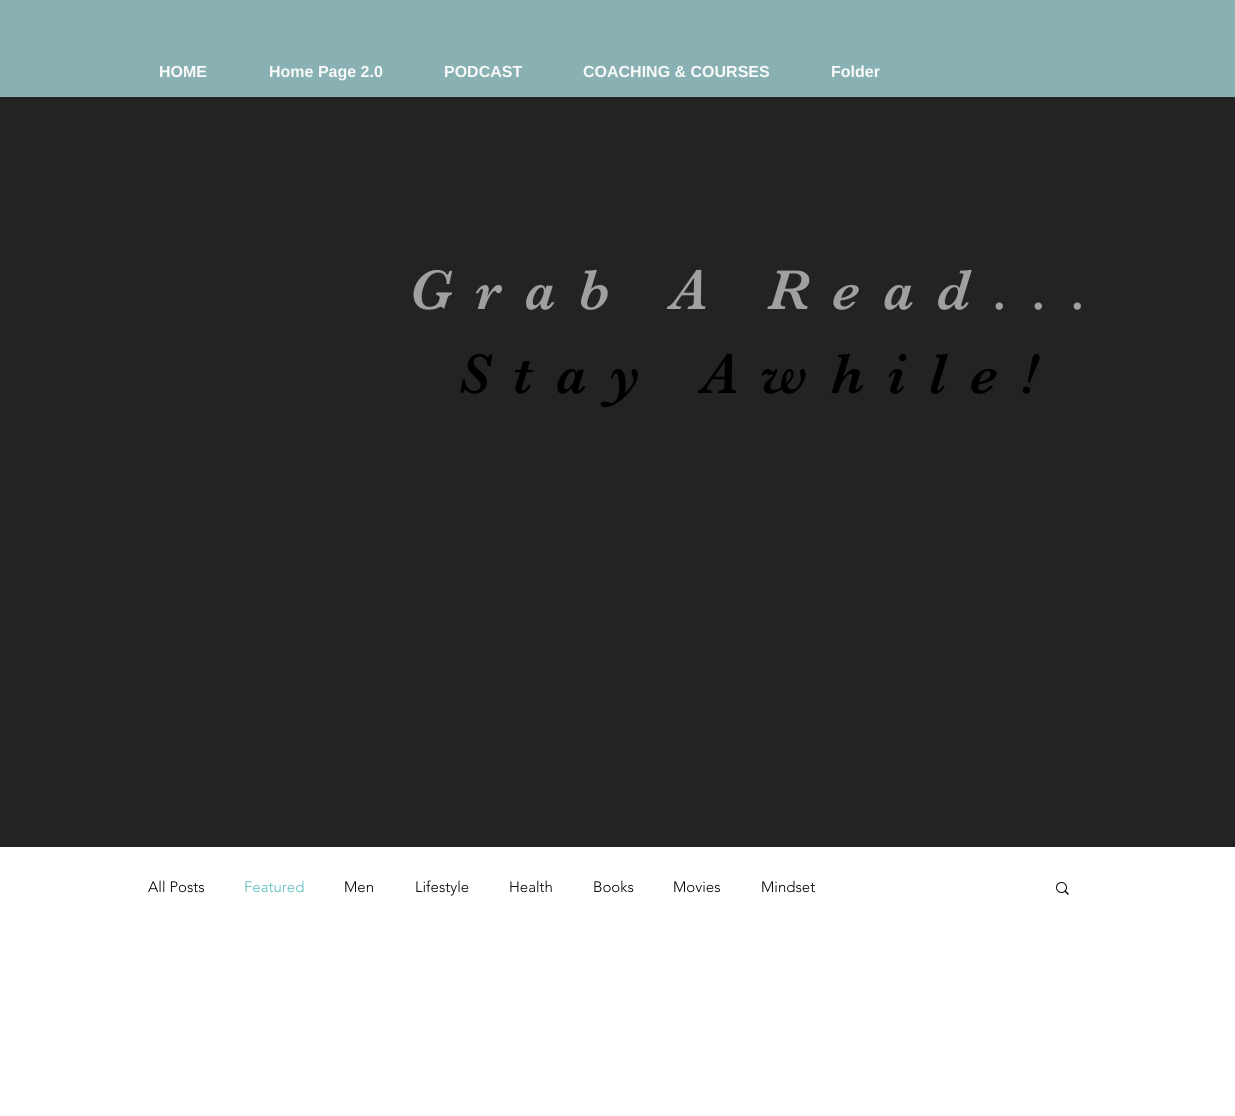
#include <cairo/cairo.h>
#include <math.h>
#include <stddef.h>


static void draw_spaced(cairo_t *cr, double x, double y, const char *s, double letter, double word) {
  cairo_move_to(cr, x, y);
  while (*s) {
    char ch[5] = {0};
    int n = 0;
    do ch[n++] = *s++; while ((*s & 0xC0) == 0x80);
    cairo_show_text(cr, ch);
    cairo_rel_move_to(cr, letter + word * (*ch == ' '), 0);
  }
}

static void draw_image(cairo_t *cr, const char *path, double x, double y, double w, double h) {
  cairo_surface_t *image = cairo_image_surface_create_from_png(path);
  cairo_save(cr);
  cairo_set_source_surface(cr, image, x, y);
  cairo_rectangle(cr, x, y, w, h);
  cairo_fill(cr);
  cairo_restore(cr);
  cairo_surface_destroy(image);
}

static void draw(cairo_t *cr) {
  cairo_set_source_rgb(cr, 1, 1, 1);
  cairo_paint(cr);
  cairo_set_source_rgb(cr, 137 / 255.0, 177 / 255.0, 179 / 255.0);
  cairo_rectangle(cr, 0, 0, 1235, 97);
  cairo_fill(cr);
  cairo_set_source_rgb(cr, 36 / 255.0, 35 / 255.0, 35 / 255.0);
  cairo_rectangle(cr, 0, 97, 1235, 750);
  cairo_fill(cr);
  draw_image(cr, "images/1.png", 1056, 882, 13, 13);
  cairo_select_font_face(cr, "Liberation Sans", CAIRO_FONT_SLANT_NORMAL, CAIRO_FONT_WEIGHT_BOLD);
  cairo_set_font_size(cr, 16);
  cairo_set_source_rgb(cr, 250 / 255.0, 250 / 255.0, 250 / 255.0);
  cairo_move_to(cr, 159, 77);
  cairo_show_text(cr, "HOME");
  cairo_move_to(cr, 269, 77);
  cairo_show_text(cr, "Home Page 2.0");
  cairo_move_to(cr, 444, 77);
  cairo_show_text(cr, "PODCAST");
  cairo_move_to(cr, 583, 77);
  cairo_show_text(cr, "COACHING & COURSES");
  cairo_move_to(cr, 831, 77);
  cairo_show_text(cr, "Folder");
  cairo_select_font_face(cr, "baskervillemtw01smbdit", CAIRO_FONT_SLANT_NORMAL, CAIRO_FONT_WEIGHT_NORMAL);
  cairo_set_font_size(cr, 58);
  cairo_set_source_rgb(cr, 160 / 255.0, 160 / 255.0, 159 / 255.0);
  draw_spaced(cr, 409, 309, "Grab A Read...", 23.25, 0);
  cairo_set_source_rgb(cr, 0, 0, 0);
  draw_spaced(cr, 458, 393, "Stay Awhile!", 23.25, 0);
  cairo_select_font_face(cr, "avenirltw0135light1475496 Light", CAIRO_FONT_SLANT_NORMAL, CAIRO_FONT_WEIGHT_NORMAL);
  cairo_set_font_size(cr, 15);
  cairo_move_to(cr, 148, 892);
  cairo_show_text(cr, "All Posts");
  cairo_set_source_rgb(cr, 87 / 255.0, 187 / 255.0, 191 / 255.0);
  cairo_move_to(cr, 244, 892);
  cairo_show_text(cr, "Featured");
  cairo_set_source_rgb(cr, 0, 0, 0);
  cairo_move_to(cr, 344, 892);
  cairo_show_text(cr, "Men");
  cairo_move_to(cr, 415, 892);
  cairo_show_text(cr, "Lifestyle");
  cairo_move_to(cr, 509, 892);
  cairo_show_text(cr, "Health");
  cairo_move_to(cr, 593, 892);
  cairo_show_text(cr, "Books");
  cairo_move_to(cr, 673, 892);
  cairo_show_text(cr, "Movies");
  cairo_move_to(cr, 761, 892);
  cairo_show_text(cr, "Mindset");
}

int main(void) {
  cairo_surface_t *surface = cairo_image_surface_create(CAIRO_FORMAT_RGB24, 1235, 1116);
  cairo_t *cr = cairo_create(surface);
  cairo_font_options_t *options = cairo_font_options_create();
  cairo_font_options_set_hint_metrics(options, CAIRO_HINT_METRICS_OFF);
  cairo_font_options_set_hint_style(options, CAIRO_HINT_STYLE_NONE);
  cairo_set_font_options(cr, options);
  cairo_set_miter_limit(cr, 4);
  draw(cr);
  cairo_surface_write_to_png(surface, "out.png");
  cairo_font_options_destroy(options);
  cairo_destroy(cr);
  cairo_surface_destroy(surface);
  return 0;
}
